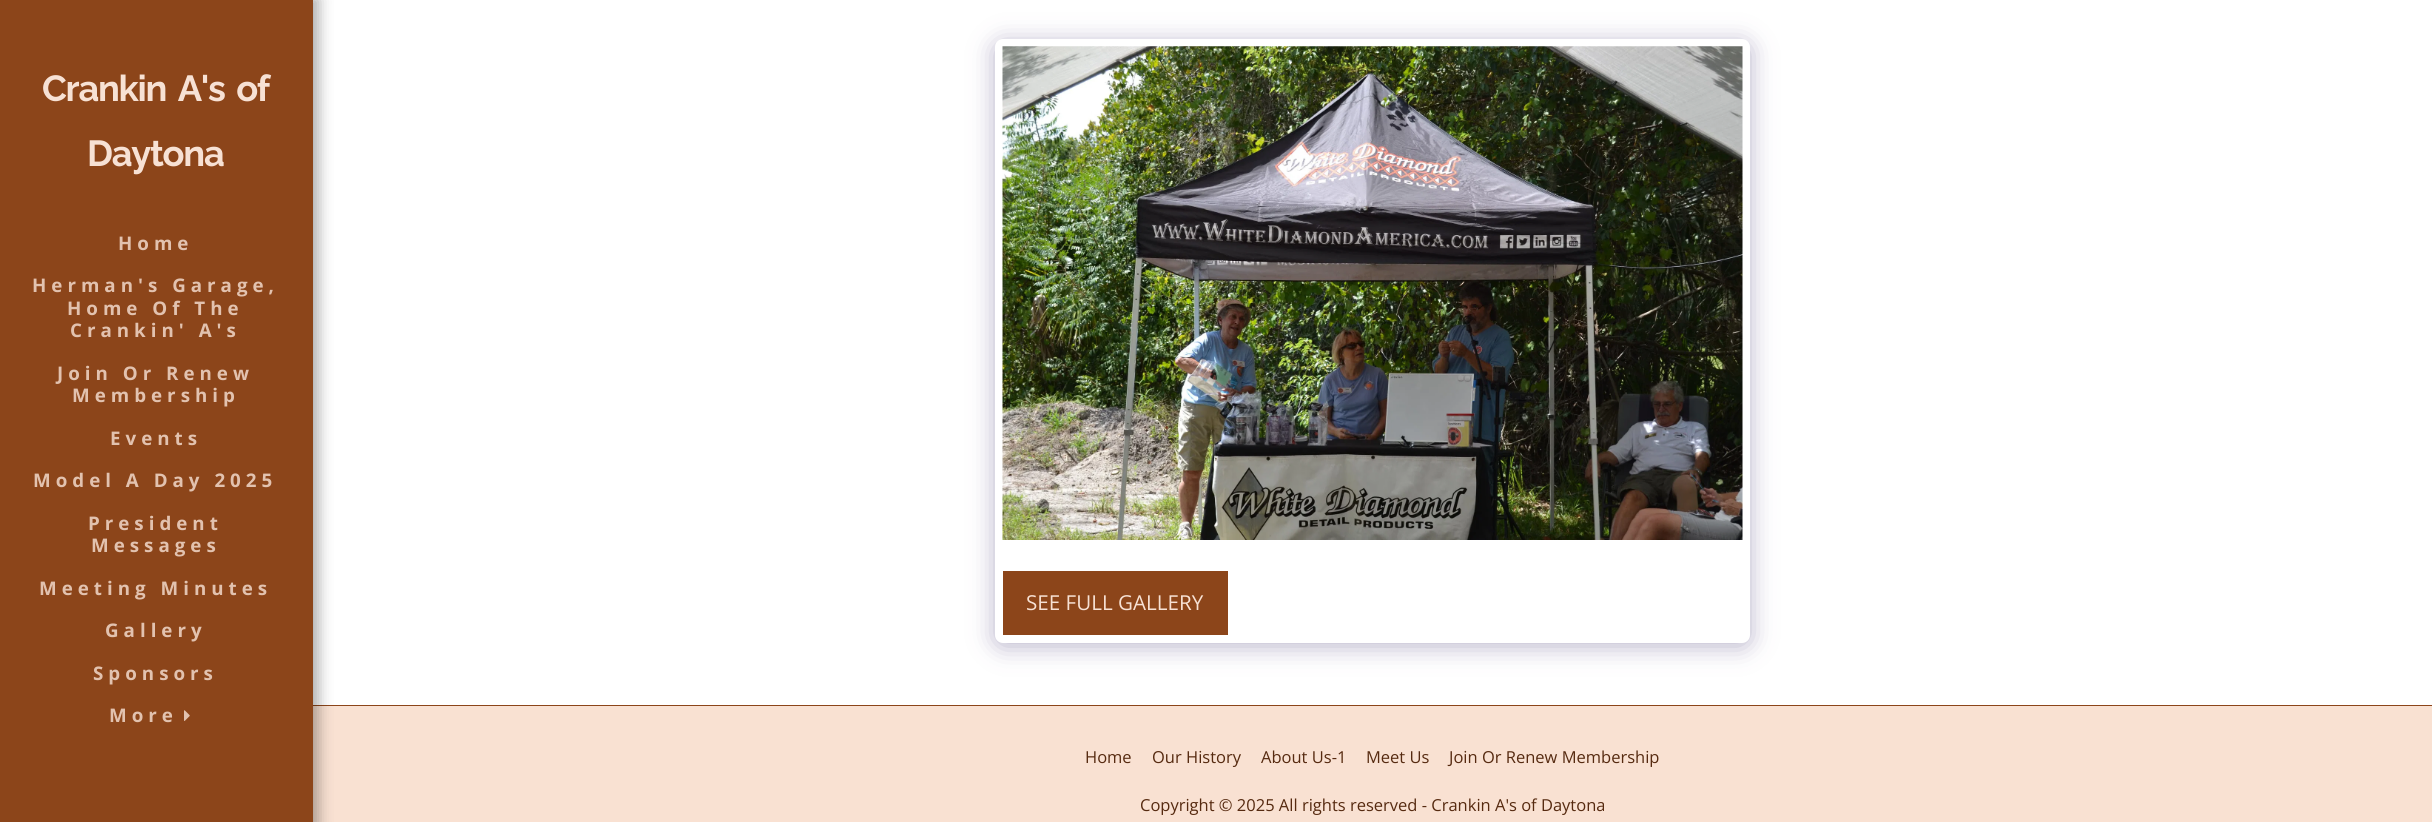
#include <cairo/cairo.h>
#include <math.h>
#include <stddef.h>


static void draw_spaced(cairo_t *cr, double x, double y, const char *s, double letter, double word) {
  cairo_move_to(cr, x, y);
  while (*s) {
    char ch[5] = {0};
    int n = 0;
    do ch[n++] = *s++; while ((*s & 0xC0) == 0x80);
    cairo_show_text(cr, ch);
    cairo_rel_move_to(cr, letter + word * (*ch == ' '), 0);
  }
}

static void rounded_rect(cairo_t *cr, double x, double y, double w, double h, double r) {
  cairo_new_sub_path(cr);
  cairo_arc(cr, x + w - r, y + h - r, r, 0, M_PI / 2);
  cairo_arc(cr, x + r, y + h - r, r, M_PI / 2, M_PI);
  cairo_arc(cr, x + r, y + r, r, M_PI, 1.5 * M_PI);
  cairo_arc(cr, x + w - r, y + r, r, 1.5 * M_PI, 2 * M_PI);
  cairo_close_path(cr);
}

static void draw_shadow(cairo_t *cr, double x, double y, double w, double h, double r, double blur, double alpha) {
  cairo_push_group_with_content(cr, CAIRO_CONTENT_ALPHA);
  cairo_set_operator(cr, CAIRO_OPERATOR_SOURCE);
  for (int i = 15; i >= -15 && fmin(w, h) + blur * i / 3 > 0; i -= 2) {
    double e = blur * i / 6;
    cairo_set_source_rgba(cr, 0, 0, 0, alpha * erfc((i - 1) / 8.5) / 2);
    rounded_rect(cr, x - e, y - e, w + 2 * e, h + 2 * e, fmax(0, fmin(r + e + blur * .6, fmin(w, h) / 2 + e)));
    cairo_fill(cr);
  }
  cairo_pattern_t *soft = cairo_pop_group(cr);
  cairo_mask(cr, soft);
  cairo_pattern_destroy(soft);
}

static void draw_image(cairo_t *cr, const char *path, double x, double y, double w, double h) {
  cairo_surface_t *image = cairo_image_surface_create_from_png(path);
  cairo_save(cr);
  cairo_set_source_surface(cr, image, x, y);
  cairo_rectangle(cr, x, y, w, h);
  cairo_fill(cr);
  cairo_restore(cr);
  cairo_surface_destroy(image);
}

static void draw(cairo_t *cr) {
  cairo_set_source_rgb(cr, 140 / 255.0, 69 / 255.0, 26 / 255.0);
  cairo_paint(cr);
  cairo_set_source_rgb(cr, 1, 1, 1);
  cairo_rectangle(cr, 313, 0, 2119, 705);
  cairo_fill(cr);
  cairo_set_source_rgb(cr, 249 / 255.0, 225 / 255.0, 210 / 255.0);
  cairo_rectangle(cr, 313, 706, 2119, 116);
  cairo_fill(cr);
  cairo_set_source_rgb(cr, 0, 0, 0);
  draw_shadow(cr, 0, -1, 318, 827, 0, 7.5, 0.35);
  cairo_set_source_rgb(cr, 140 / 255.0, 69 / 255.0, 26 / 255.0);
  cairo_rectangle(cr, 0, 0, 313, 822);
  cairo_fill(cr);
  draw_image(cr, "images/1.png", 184, 710, 6, 11);
  cairo_set_source_rgb(cr, 77 / 255.0, 63 / 255.0, 122 / 255.0);
  draw_shadow(cr, 995, 43, 755, 603, 8, 12.5, 0.4);
  cairo_set_source_rgb(cr, 1, 1, 1);
  rounded_rect(cr, 995, 39, 755, 604, 8);
  cairo_fill(cr);
  draw_image(cr, "images/2.png", 1002, 46, 741, 494);
  cairo_set_source_rgb(cr, 140 / 255.0, 69 / 255.0, 26 / 255.0);
  cairo_rectangle(cr, 1003, 571, 225, 64);
  cairo_fill(cr);
  cairo_select_font_face(cr, "Raleway", CAIRO_FONT_SLANT_NORMAL, CAIRO_FONT_WEIGHT_BOLD);
  cairo_set_font_size(cr, 36.25);
  cairo_set_source_rgb(cr, 247 / 255.0, 225 / 255.0, 212 / 255.0);
  draw_spaced(cr, 42, 101, "Crankin A's of", -1.25, 4);
  draw_spaced(cr, 87, 166, "Daytona", -1.25, 0);
  cairo_select_font_face(cr, "Open Sans", CAIRO_FONT_SLANT_NORMAL, CAIRO_FONT_WEIGHT_BOLD);
  cairo_set_font_size(cr, 18.75);
  cairo_set_source_rgb(cr, 226 / 255.0, 194 / 255.0, 175 / 255.0);
  draw_spaced(cr, 118, 250, "Home", 5, 0);
  draw_spaced(cr, 32, 292, "Herman's Garage,", 5, 0);
  draw_spaced(cr, 67, 315, "Home Of The", 5, 0);
  draw_spaced(cr, 70, 337, "Crankin' A's", 5, 0);
  draw_spaced(cr, 57, 380, "Join Or Renew", 5, 0);
  draw_spaced(cr, 72, 402, "Membership", 5, 0);
  draw_spaced(cr, 110, 445, "Events", 5, 0);
  draw_spaced(cr, 33, 487, "Model A Day 2025", 5, 0);
  draw_spaced(cr, 88, 530, "President", 5, 0);
  draw_spaced(cr, 91, 552, "Messages", 5, 0);
  draw_spaced(cr, 39, 595, "Meeting Minutes", 5, 0);
  draw_spaced(cr, 105, 637, "Gallery", 5, 0);
  draw_spaced(cr, 93, 680, "Sponsors", 5, 0);
  draw_spaced(cr, 109, 722, "More", 5, 0);
  cairo_select_font_face(cr, "Open Sans", CAIRO_FONT_SLANT_NORMAL, CAIRO_FONT_WEIGHT_NORMAL);
  cairo_set_font_size(cr, 20.6);
  cairo_set_source_rgb(cr, 247 / 255.0, 225 / 255.0, 212 / 255.0);
  cairo_move_to(cr, 1026, 610);
  cairo_show_text(cr, "SEE FULL GALLERY");
  cairo_set_font_size(cr, 16.5);
  cairo_set_source_rgb(cr, 86 / 255.0, 42 / 255.0, 16 / 255.0);
  cairo_move_to(cr, 1085, 763);
  cairo_show_text(cr, "Home");
  cairo_move_to(cr, 1152, 763);
  cairo_show_text(cr, "Our History");
  cairo_move_to(cr, 1261, 763);
  cairo_show_text(cr, "About Us-1");
  cairo_move_to(cr, 1366, 763);
  cairo_show_text(cr, "Meet Us");
  cairo_move_to(cr, 1449, 763);
  cairo_show_text(cr, "Join Or Renew Membership");
  cairo_move_to(cr, 1140, 811);
  cairo_show_text(cr, "Copyright © 2025 All rights reserved - Crankin A's of Daytona");
}

int main(void) {
  cairo_surface_t *surface = cairo_image_surface_create(CAIRO_FORMAT_RGB24, 2432, 822);
  cairo_t *cr = cairo_create(surface);
  cairo_font_options_t *options = cairo_font_options_create();
  cairo_font_options_set_hint_metrics(options, CAIRO_HINT_METRICS_OFF);
  cairo_font_options_set_hint_style(options, CAIRO_HINT_STYLE_NONE);
  cairo_set_font_options(cr, options);
  cairo_set_miter_limit(cr, 4);
  draw(cr);
  cairo_surface_write_to_png(surface, "out.png");
  cairo_font_options_destroy(options);
  cairo_destroy(cr);
  cairo_surface_destroy(surface);
  return 0;
}
